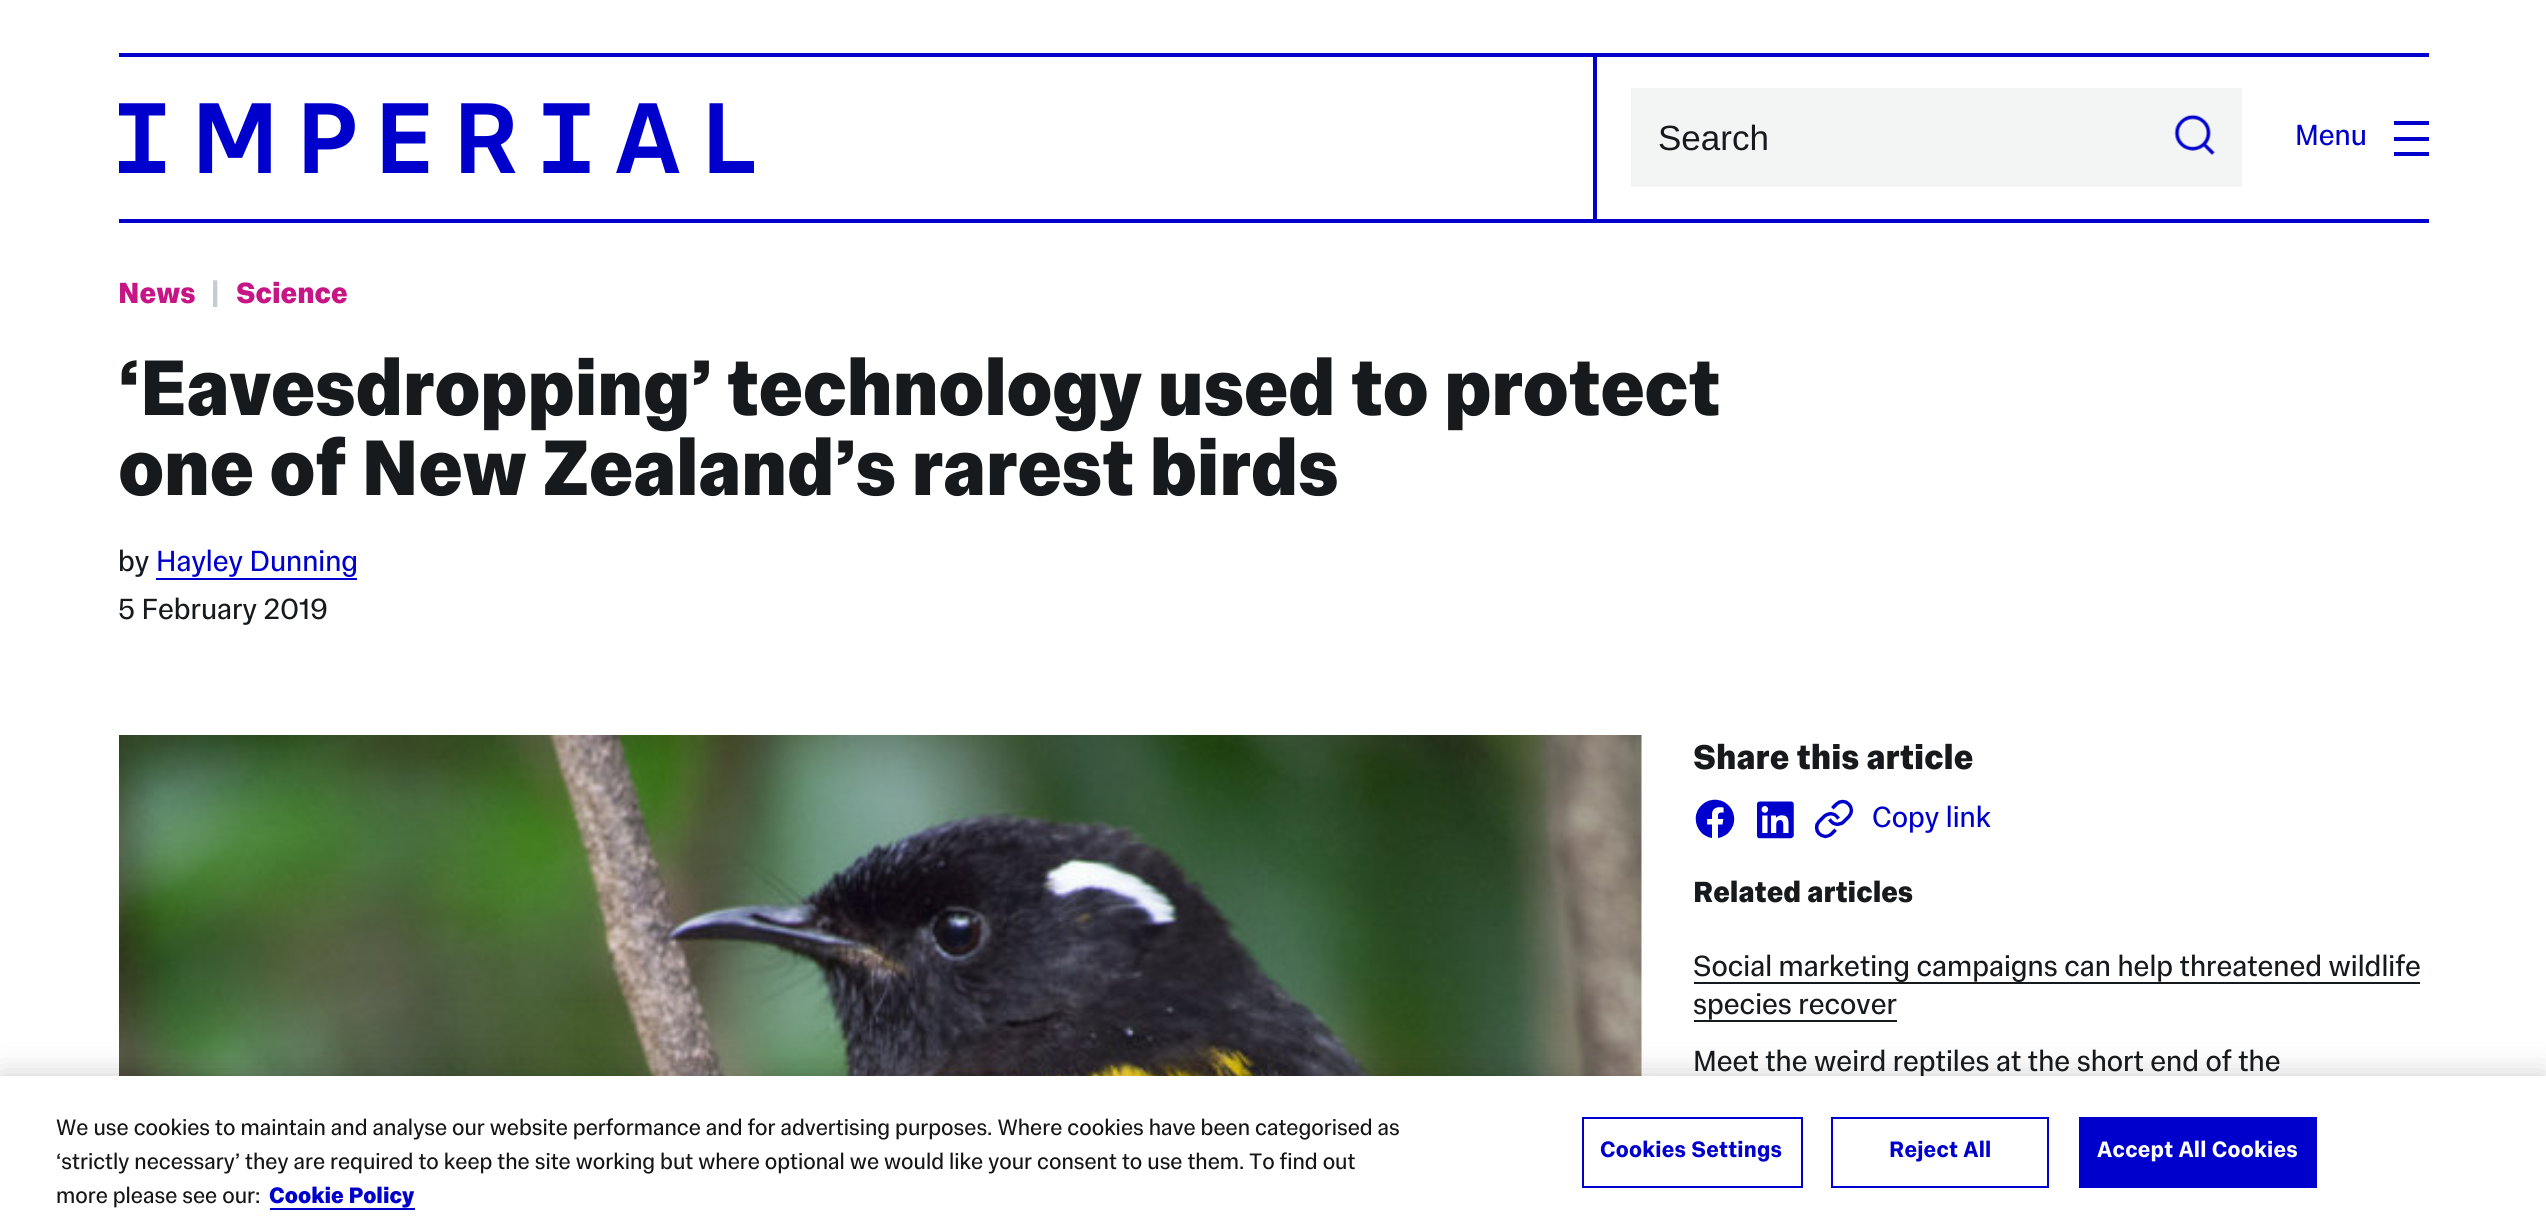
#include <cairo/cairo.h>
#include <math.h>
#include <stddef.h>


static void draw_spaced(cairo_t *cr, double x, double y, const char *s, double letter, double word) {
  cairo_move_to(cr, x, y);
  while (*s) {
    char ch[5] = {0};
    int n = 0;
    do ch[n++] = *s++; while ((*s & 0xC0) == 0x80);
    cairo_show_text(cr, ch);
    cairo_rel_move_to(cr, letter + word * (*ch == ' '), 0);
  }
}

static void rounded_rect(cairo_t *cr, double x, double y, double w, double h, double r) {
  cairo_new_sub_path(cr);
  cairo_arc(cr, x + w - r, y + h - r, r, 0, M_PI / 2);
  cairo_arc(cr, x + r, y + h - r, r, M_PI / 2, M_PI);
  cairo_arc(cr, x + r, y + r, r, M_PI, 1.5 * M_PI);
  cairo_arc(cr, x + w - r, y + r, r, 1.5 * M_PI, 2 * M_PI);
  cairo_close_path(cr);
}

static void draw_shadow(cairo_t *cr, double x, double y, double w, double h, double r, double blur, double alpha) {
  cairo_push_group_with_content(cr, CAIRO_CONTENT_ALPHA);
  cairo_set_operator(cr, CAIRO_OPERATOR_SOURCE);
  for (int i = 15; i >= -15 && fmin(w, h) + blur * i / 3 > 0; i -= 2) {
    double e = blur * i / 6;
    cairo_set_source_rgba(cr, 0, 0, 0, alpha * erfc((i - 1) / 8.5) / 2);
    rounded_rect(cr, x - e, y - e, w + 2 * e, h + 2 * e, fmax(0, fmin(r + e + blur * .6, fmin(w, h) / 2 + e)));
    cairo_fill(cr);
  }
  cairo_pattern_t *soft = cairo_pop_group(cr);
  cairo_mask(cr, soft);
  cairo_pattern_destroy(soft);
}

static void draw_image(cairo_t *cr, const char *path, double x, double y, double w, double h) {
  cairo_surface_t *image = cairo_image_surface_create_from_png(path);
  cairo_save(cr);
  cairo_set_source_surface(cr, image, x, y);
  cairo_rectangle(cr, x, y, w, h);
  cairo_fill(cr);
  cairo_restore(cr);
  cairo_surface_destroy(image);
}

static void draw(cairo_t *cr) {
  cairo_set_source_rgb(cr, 1, 1, 1);
  cairo_paint(cr);
  cairo_set_source_rgb(cr, 0, 0, 205 / 255.0);
  cairo_rectangle(cr, 119, 53, 2310, 4);
  cairo_fill(cr);
  draw_image(cr, "images/1.png", 119, 103, 635, 70);
  cairo_rectangle(cr, 1593, 53, 4, 169);
  cairo_fill(cr);
  cairo_set_source_rgb(cr, 243 / 255.0, 244 / 255.0, 244 / 255.0);
  cairo_rectangle(cr, 1631, 88, 611, 99);
  cairo_fill(cr);
  draw_image(cr, "images/2.png", 2174, 114, 41, 41);
  cairo_set_source_rgb(cr, 0, 0, 205 / 255.0);
  cairo_rectangle(cr, 2394, 121, 35, 4);
  cairo_fill(cr);
  cairo_rectangle(cr, 2394, 137, 35, 4);
  cairo_fill(cr);
  cairo_rectangle(cr, 2394, 152, 35, 4);
  cairo_fill(cr);
  cairo_rectangle(cr, 119, 219, 2310, 4);
  cairo_fill(cr);
  cairo_rectangle(cr, 156, 578, 201, 2);
  cairo_fill(cr);
  draw_image(cr, "images/3.png", 119, 735, 1523, 341);
  draw_image(cr, "images/4.png", 1695, 799, 40, 39);
  draw_image(cr, "images/5.png", 1757, 801, 37, 38);
  draw_image(cr, "images/6.png", 1814, 799, 40, 40);
  cairo_set_source_rgb(cr, 22 / 255.0, 26 / 255.0, 29 / 255.0);
  cairo_rectangle(cr, 1694, 982, 726, 2);
  cairo_fill(cr);
  cairo_rectangle(cr, 1694, 1020, 203, 2);
  cairo_fill(cr);
  cairo_set_source_rgb(cr, 0, 0, 0);
  draw_shadow(cr, 0, 1076, 2546, 156, 0, 16, 0.2);
  cairo_select_font_face(cr, "Liberation Sans", CAIRO_FONT_SLANT_NORMAL, CAIRO_FONT_WEIGHT_NORMAL);
  cairo_set_font_size(cr, 35);
  cairo_set_source_rgb(cr, 22 / 255.0, 26 / 255.0, 29 / 255.0);
  cairo_move_to(cr, 1658, 150);
  cairo_show_text(cr, "Search");
  cairo_select_font_face(cr, "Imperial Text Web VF", CAIRO_FONT_SLANT_NORMAL, CAIRO_FONT_WEIGHT_NORMAL);
  cairo_set_font_size(cr, 29.7);
  cairo_set_source_rgb(cr, 0, 0, 205 / 255.0);
  cairo_move_to(cr, 2295, 145);
  cairo_show_text(cr, "Menu");
  cairo_select_font_face(cr, "Imperial Text Web VF", CAIRO_FONT_SLANT_NORMAL, CAIRO_FONT_WEIGHT_BOLD);
  cairo_set_source_rgb(cr, 199 / 255.0, 21 / 255.0, 133 / 255.0);
  cairo_move_to(cr, 118, 303);
  cairo_show_text(cr, "News");
  cairo_set_source_rgb(cr, 198 / 255.0, 204 / 255.0, 211 / 255.0);
  cairo_move_to(cr, 211, 303);
  cairo_show_text(cr, "|");
  cairo_set_source_rgb(cr, 199 / 255.0, 21 / 255.0, 133 / 255.0);
  cairo_move_to(cr, 236, 303);
  cairo_show_text(cr, "Science");
  cairo_set_font_size(cr, 80.1);
  cairo_set_source_rgb(cr, 22 / 255.0, 26 / 255.0, 29 / 255.0);
  draw_spaced(cr, 118, 415, "‘Eavesdropping’ technology used to protect", -0.8, 0);
  draw_spaced(cr, 118, 495, "one of New Zealand’s rarest birds", -0.8, 0);
  cairo_select_font_face(cr, "Imperial Text Web VF", CAIRO_FONT_SLANT_NORMAL, CAIRO_FONT_WEIGHT_NORMAL);
  cairo_set_font_size(cr, 29.7);
  cairo_move_to(cr, 118, 571);
  cairo_show_text(cr, "by");
  cairo_set_source_rgb(cr, 0, 0, 205 / 255.0);
  cairo_move_to(cr, 156, 571);
  cairo_show_text(cr, "Hayley Dunning");
  cairo_set_source_rgb(cr, 22 / 255.0, 26 / 255.0, 29 / 255.0);
  cairo_move_to(cr, 118, 619);
  cairo_show_text(cr, "5 February 2019");
  cairo_select_font_face(cr, "Imperial Text Web VF", CAIRO_FONT_SLANT_NORMAL, CAIRO_FONT_WEIGHT_BOLD);
  cairo_set_font_size(cr, 35);
  cairo_move_to(cr, 1693, 769);
  cairo_show_text(cr, "Share this article");
  cairo_select_font_face(cr, "Imperial Text Web VF", CAIRO_FONT_SLANT_NORMAL, CAIRO_FONT_WEIGHT_NORMAL);
  cairo_set_font_size(cr, 29.7);
  cairo_set_source_rgb(cr, 0, 0, 205 / 255.0);
  cairo_move_to(cr, 1872, 827);
  cairo_show_text(cr, "Copy link");
  cairo_select_font_face(cr, "Imperial Text Web VF", CAIRO_FONT_SLANT_NORMAL, CAIRO_FONT_WEIGHT_BOLD);
  cairo_set_source_rgb(cr, 22 / 255.0, 26 / 255.0, 29 / 255.0);
  cairo_move_to(cr, 1693, 902);
  cairo_show_text(cr, "Related articles");
  cairo_select_font_face(cr, "Imperial Text Web VF", CAIRO_FONT_SLANT_NORMAL, CAIRO_FONT_WEIGHT_NORMAL);
  cairo_move_to(cr, 1693, 976);
  cairo_show_text(cr, "Social marketing campaigns can help threatened wildlife");
  cairo_move_to(cr, 1693, 1014);
  cairo_show_text(cr, "species recover");
  cairo_move_to(cr, 1693, 1071);
  cairo_show_text(cr, "Meet the weird reptiles at the short end of the");
  cairo_set_source_rgb(cr, 1, 1, 1);
  cairo_rectangle(cr, 0, 1076, 2546, 156);
  cairo_fill(cr);
  cairo_set_font_size(cr, 22.75);
  cairo_set_source_rgb(cr, 22 / 255.0, 21 / 255.0, 21 / 255.0);
  cairo_move_to(cr, 56, 1135);
  cairo_show_text(cr, "We use cookies to maintain and analyse our website performance and for advertising purposes. Where cookies have been categorised as");
  cairo_move_to(cr, 56, 1169);
  cairo_show_text(cr, "‘strictly necessary’ they are required to keep the site working but where optional we would like your consent to use them. To find out");
  cairo_move_to(cr, 56, 1203);
  cairo_show_text(cr, "more please see our:");
  cairo_select_font_face(cr, "Imperial Text Web VF", CAIRO_FONT_SLANT_NORMAL, CAIRO_FONT_WEIGHT_BOLD);
  cairo_set_source_rgb(cr, 0, 0, 205 / 255.0);
  cairo_move_to(cr, 269, 1203);
  cairo_show_text(cr, "Cookie Policy");
  cairo_rectangle(cr, 270, 1208, 145, 2);
  cairo_fill(cr);
  cairo_rectangle(cr, 1583, 1118, 219, 69);
  cairo_stroke(cr);
  cairo_select_font_face(cr, "Imperial Text Web VF SemiBold", CAIRO_FONT_SLANT_NORMAL, CAIRO_FONT_WEIGHT_NORMAL);
  draw_spaced(cr, 1600, 1157, "Cookies Settings", 0.25, 0);
  cairo_rectangle(cr, 1832, 1118, 216, 69);
  cairo_stroke(cr);
  draw_spaced(cr, 1889, 1157, "Reject All", 0.25, 0);
  cairo_rectangle(cr, 2079, 1117, 238, 71);
  cairo_fill(cr);
  cairo_set_source_rgb(cr, 1, 1, 1);
  draw_spaced(cr, 2097, 1157, "Accept All Cookies", 0.25, 0);
}

int main(void) {
  cairo_surface_t *surface = cairo_image_surface_create(CAIRO_FORMAT_RGB24, 2546, 1232);
  cairo_t *cr = cairo_create(surface);
  cairo_font_options_t *options = cairo_font_options_create();
  cairo_font_options_set_hint_metrics(options, CAIRO_HINT_METRICS_OFF);
  cairo_font_options_set_hint_style(options, CAIRO_HINT_STYLE_NONE);
  cairo_set_font_options(cr, options);
  cairo_set_miter_limit(cr, 4);
  draw(cr);
  cairo_surface_write_to_png(surface, "out.png");
  cairo_font_options_destroy(options);
  cairo_destroy(cr);
  cairo_surface_destroy(surface);
  return 0;
}
